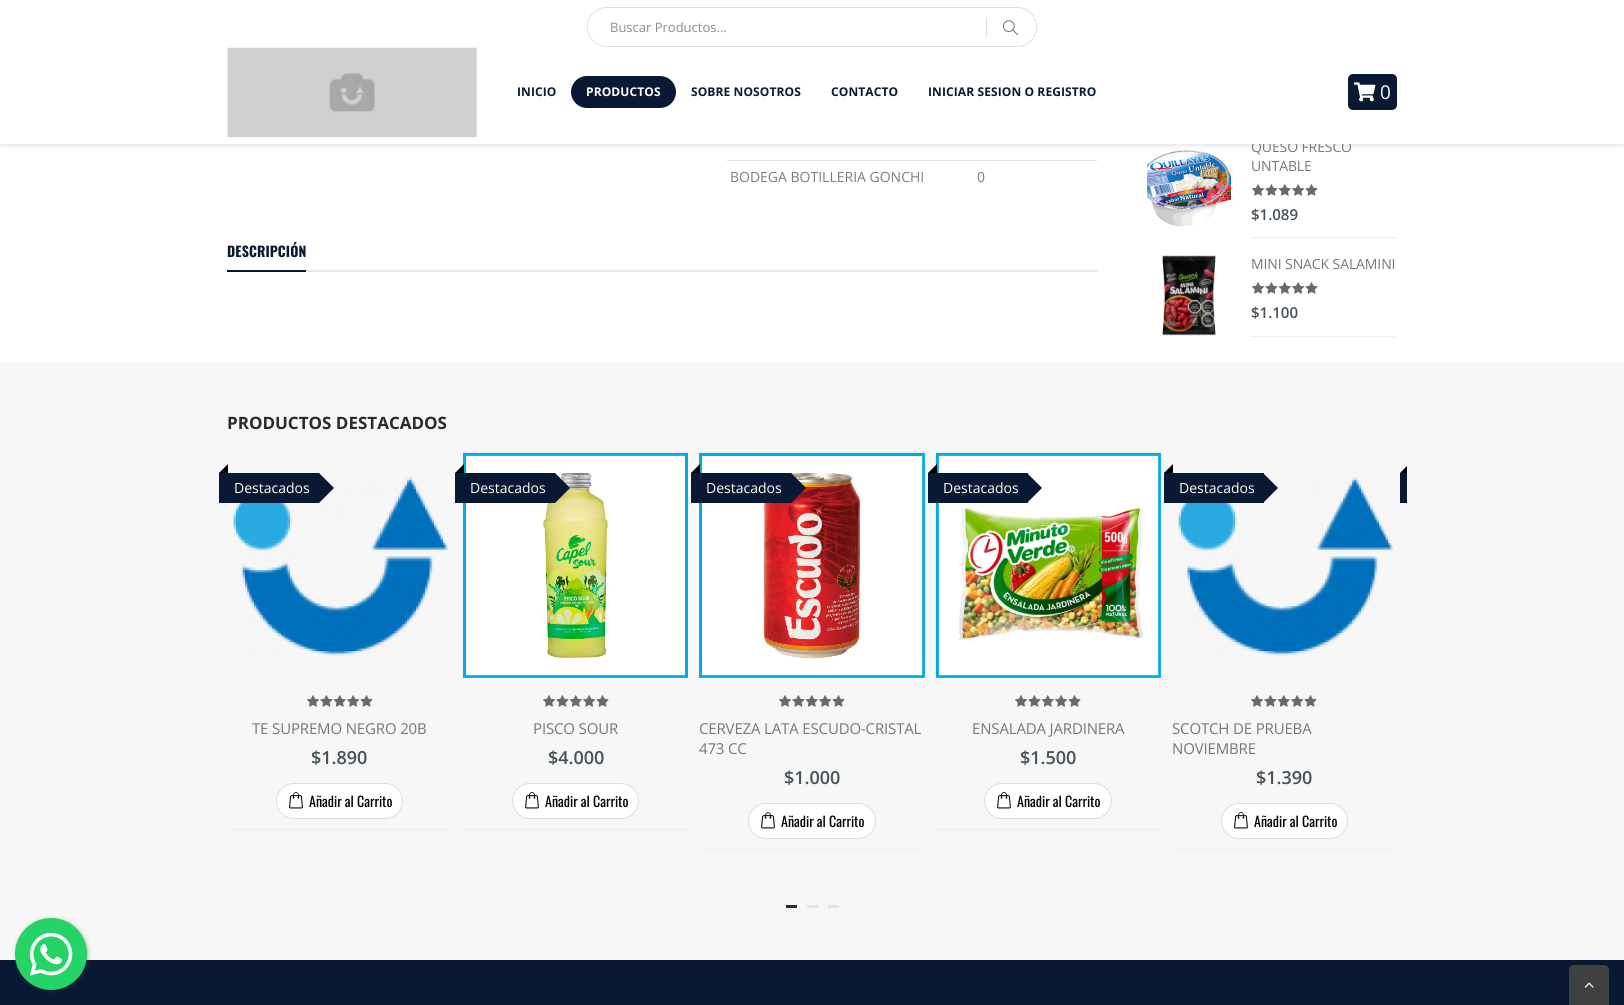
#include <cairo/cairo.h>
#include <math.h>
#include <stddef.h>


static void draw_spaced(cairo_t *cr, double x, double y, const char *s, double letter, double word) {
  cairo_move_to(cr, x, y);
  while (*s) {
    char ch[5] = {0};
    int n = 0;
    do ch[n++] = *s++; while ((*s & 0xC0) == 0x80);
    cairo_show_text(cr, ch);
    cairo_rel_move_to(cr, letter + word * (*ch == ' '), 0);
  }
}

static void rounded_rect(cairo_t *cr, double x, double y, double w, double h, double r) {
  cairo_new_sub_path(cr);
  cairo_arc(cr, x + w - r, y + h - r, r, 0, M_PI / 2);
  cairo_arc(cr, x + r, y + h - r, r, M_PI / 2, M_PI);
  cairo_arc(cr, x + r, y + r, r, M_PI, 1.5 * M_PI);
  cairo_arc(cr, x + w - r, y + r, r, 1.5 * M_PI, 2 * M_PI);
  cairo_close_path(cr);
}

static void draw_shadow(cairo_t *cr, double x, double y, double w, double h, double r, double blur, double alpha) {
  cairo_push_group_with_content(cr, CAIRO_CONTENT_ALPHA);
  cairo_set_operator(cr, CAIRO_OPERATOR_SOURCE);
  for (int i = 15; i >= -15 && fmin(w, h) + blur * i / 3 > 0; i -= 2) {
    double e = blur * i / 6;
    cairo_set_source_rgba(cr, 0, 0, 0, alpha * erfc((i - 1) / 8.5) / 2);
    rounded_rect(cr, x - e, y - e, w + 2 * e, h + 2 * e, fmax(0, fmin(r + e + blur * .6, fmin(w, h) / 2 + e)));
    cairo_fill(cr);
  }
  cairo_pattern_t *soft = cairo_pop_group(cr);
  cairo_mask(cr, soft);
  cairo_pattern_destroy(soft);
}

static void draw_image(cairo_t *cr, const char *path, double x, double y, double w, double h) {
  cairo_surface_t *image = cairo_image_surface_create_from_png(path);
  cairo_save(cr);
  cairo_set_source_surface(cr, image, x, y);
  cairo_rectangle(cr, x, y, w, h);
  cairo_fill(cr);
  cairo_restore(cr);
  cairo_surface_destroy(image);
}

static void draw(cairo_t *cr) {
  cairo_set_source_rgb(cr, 1, 1, 1);
  cairo_paint(cr);
  draw_image(cr, "images/4.png", 1147, 150, 84, 77);
  cairo_set_source_rgb(cr, 0, 0, 0);
  draw_shadow(cr, 0, 2, 1624, 144, 0, 2.5, 0.1);
  cairo_set_source_rgb(cr, 222 / 255.0, 226 / 255.0, 230 / 255.0);
  cairo_rectangle(cr, 727, 160, 370, 1);
  cairo_fill(cr);
  cairo_set_source_rgb(cr, 231 / 255.0, 231 / 255.0, 231 / 255.0);
  cairo_rectangle(cr, 306, 270, 791, 2);
  cairo_fill(cr);
  cairo_set_source_rgb(cr, 10 / 255.0, 25 / 255.0, 51 / 255.0);
  cairo_rectangle(cr, 227, 270, 79, 2);
  cairo_fill(cr);
  cairo_set_source_rgb(cr, 238 / 255.0, 238 / 255.0, 238 / 255.0);
  cairo_rectangle(cr, 1251, 237, 146, 1);
  cairo_fill(cr);
  draw_image(cr, "images/5.png", 1252, 184, 66, 12);
  draw_image(cr, "images/6.png", 1252, 184, 66, 12);
  draw_image(cr, "images/7.png", 1162, 255, 54, 81);
  cairo_rectangle(cr, 1251, 336, 144, 1);
  cairo_fill(cr);
  draw_image(cr, "images/5.png", 1252, 282, 66, 12);
  draw_image(cr, "images/6.png", 1252, 282, 66, 12);
  cairo_set_source_rgb(cr, 247 / 255.0, 247 / 255.0, 247 / 255.0);
  cairo_rectangle(cr, 0, 362, 1624, 598);
  cairo_fill(cr);
  draw_image(cr, "images/8.png", 232, 477, 216, 179);
  cairo_set_source_rgb(cr, 10 / 255.0, 25 / 255.0, 51 / 255.0);
  cairo_rectangle(cr, 219, 473, 100, 30);
  cairo_fill(cr);
  cairo_set_source_rgb(cr, 0, 0, 0);
  cairo_new_path(cr);
  cairo_move_to(cr, 228, 473);
  cairo_line_to(cr, 219, 473);
  cairo_line_to(cr, 228, 464);
  cairo_close_path(cr);
  cairo_fill(cr);
  cairo_set_source_rgb(cr, 10 / 255.0, 25 / 255.0, 51 / 255.0);
  cairo_new_path(cr);
  cairo_move_to(cr, 319, 503);
  cairo_line_to(cr, 319, 473);
  cairo_line_to(cr, 334, 488);
  cairo_close_path(cr);
  cairo_fill(cr);
  cairo_set_source_rgb(cr, 238 / 255.0, 238 / 255.0, 238 / 255.0);
  cairo_rectangle(cr, 227, 829, 225, 1);
  cairo_fill(cr);
  draw_image(cr, "images/9.png", 307, 695, 66, 12);
  draw_image(cr, "images/10.png", 307, 695, 66, 12);
  cairo_set_source_rgb(cr, 1, 1, 1);
  rounded_rect(cr, 276.5, 783.5, 126, 35, 17.5);
  cairo_fill_preserve(cr);
  cairo_set_source_rgb(cr, 221 / 255.0, 221 / 255.0, 221 / 255.0);
  cairo_set_line_width(cr, 1);
  cairo_stroke(cr);
  draw_image(cr, "images/11.png", 289, 792, 14, 17);
  draw_image(cr, "images/12.png", 463, 452, 225, 226);
  cairo_set_source_rgb(cr, 10 / 255.0, 25 / 255.0, 51 / 255.0);
  cairo_rectangle(cr, 455, 473, 100, 30);
  cairo_fill(cr);
  cairo_set_source_rgb(cr, 0, 0, 0);
  cairo_new_path(cr);
  cairo_move_to(cr, 464, 473);
  cairo_line_to(cr, 455, 473);
  cairo_line_to(cr, 464, 464);
  cairo_close_path(cr);
  cairo_fill(cr);
  cairo_set_source_rgb(cr, 10 / 255.0, 25 / 255.0, 51 / 255.0);
  cairo_new_path(cr);
  cairo_move_to(cr, 555, 503);
  cairo_line_to(cr, 555, 473);
  cairo_line_to(cr, 570, 488);
  cairo_close_path(cr);
  cairo_fill(cr);
  cairo_set_source_rgb(cr, 238 / 255.0, 238 / 255.0, 238 / 255.0);
  cairo_rectangle(cr, 463, 829, 225, 1);
  cairo_fill(cr);
  draw_image(cr, "images/9.png", 543, 695, 66, 12);
  draw_image(cr, "images/10.png", 543, 695, 66, 12);
  cairo_set_source_rgb(cr, 1, 1, 1);
  rounded_rect(cr, 512.5, 783.5, 126, 35, 17.5);
  cairo_fill_preserve(cr);
  cairo_set_source_rgb(cr, 221 / 255.0, 221 / 255.0, 221 / 255.0);
  cairo_stroke(cr);
  draw_image(cr, "images/11.png", 525, 792, 14, 17);
  draw_image(cr, "images/13.png", 699, 452, 226, 226);
  cairo_set_source_rgb(cr, 10 / 255.0, 25 / 255.0, 51 / 255.0);
  cairo_rectangle(cr, 691, 473, 100, 30);
  cairo_fill(cr);
  cairo_set_source_rgb(cr, 0, 0, 0);
  cairo_new_path(cr);
  cairo_move_to(cr, 700, 473);
  cairo_line_to(cr, 691, 473);
  cairo_line_to(cr, 700, 464);
  cairo_close_path(cr);
  cairo_fill(cr);
  cairo_set_source_rgb(cr, 10 / 255.0, 25 / 255.0, 51 / 255.0);
  cairo_new_path(cr);
  cairo_move_to(cr, 791, 503);
  cairo_line_to(cr, 791, 473);
  cairo_line_to(cr, 806, 488);
  cairo_close_path(cr);
  cairo_fill(cr);
  cairo_set_source_rgb(cr, 238 / 255.0, 238 / 255.0, 238 / 255.0);
  cairo_rectangle(cr, 699, 849, 226, 1);
  cairo_fill(cr);
  draw_image(cr, "images/9.png", 779, 695, 66, 12);
  draw_image(cr, "images/10.png", 779, 695, 66, 12);
  cairo_set_source_rgb(cr, 1, 1, 1);
  rounded_rect(cr, 748.5, 803.5, 127, 35, 17.5);
  cairo_fill_preserve(cr);
  cairo_set_source_rgb(cr, 221 / 255.0, 221 / 255.0, 221 / 255.0);
  cairo_stroke(cr);
  draw_image(cr, "images/11.png", 761, 812, 14, 17);
  draw_image(cr, "images/14.png", 935, 452, 226, 226);
  cairo_set_source_rgb(cr, 10 / 255.0, 25 / 255.0, 51 / 255.0);
  cairo_rectangle(cr, 928, 473, 100, 30);
  cairo_fill(cr);
  cairo_set_source_rgb(cr, 0, 0, 0);
  cairo_new_path(cr);
  cairo_move_to(cr, 937, 473);
  cairo_line_to(cr, 928, 473);
  cairo_line_to(cr, 937, 464);
  cairo_close_path(cr);
  cairo_fill(cr);
  cairo_set_source_rgb(cr, 10 / 255.0, 25 / 255.0, 51 / 255.0);
  cairo_new_path(cr);
  cairo_move_to(cr, 1027, 503);
  cairo_line_to(cr, 1027, 473);
  cairo_line_to(cr, 1042, 488);
  cairo_close_path(cr);
  cairo_fill(cr);
  cairo_set_source_rgb(cr, 238 / 255.0, 238 / 255.0, 238 / 255.0);
  cairo_rectangle(cr, 936, 829, 225, 1);
  cairo_fill(cr);
  draw_image(cr, "images/9.png", 1015, 695, 66, 12);
  draw_image(cr, "images/10.png", 1015, 695, 66, 12);
  cairo_set_source_rgb(cr, 1, 1, 1);
  rounded_rect(cr, 984.5, 783.5, 127, 35, 17.5);
  cairo_fill_preserve(cr);
  cairo_set_source_rgb(cr, 221 / 255.0, 221 / 255.0, 221 / 255.0);
  cairo_stroke(cr);
  draw_image(cr, "images/11.png", 997, 792, 14, 17);
  draw_image(cr, "images/15.png", 1178, 477, 215, 179);
  cairo_set_source_rgb(cr, 10 / 255.0, 25 / 255.0, 51 / 255.0);
  cairo_rectangle(cr, 1164, 473, 100, 30);
  cairo_fill(cr);
  cairo_set_source_rgb(cr, 0, 0, 0);
  cairo_new_path(cr);
  cairo_move_to(cr, 1173, 473);
  cairo_line_to(cr, 1164, 473);
  cairo_line_to(cr, 1173, 464);
  cairo_close_path(cr);
  cairo_fill(cr);
  cairo_set_source_rgb(cr, 10 / 255.0, 25 / 255.0, 51 / 255.0);
  cairo_new_path(cr);
  cairo_move_to(cr, 1263, 503);
  cairo_line_to(cr, 1263, 473);
  cairo_line_to(cr, 1278, 488);
  cairo_close_path(cr);
  cairo_fill(cr);
  cairo_set_source_rgb(cr, 238 / 255.0, 238 / 255.0, 238 / 255.0);
  cairo_rectangle(cr, 1172, 849, 225, 1);
  cairo_fill(cr);
  draw_image(cr, "images/9.png", 1251, 695, 66, 12);
  draw_image(cr, "images/10.png", 1251, 695, 66, 12);
  cairo_set_source_rgb(cr, 1, 1, 1);
  rounded_rect(cr, 1221.5, 803.5, 126, 35, 17.5);
  cairo_fill_preserve(cr);
  cairo_set_source_rgb(cr, 221 / 255.0, 221 / 255.0, 221 / 255.0);
  cairo_stroke(cr);
  draw_image(cr, "images/11.png", 1234, 812, 14, 17);
  cairo_set_source_rgb(cr, 10 / 255.0, 25 / 255.0, 51 / 255.0);
  cairo_rectangle(cr, 1400, 473, 7, 30);
  cairo_fill(cr);
  cairo_save(cr);
  cairo_rectangle(cr, 217, 414, 1190, 496);
  cairo_clip(cr);
  cairo_set_source_rgb(cr, 0, 0, 0);
  cairo_new_path(cr);
  cairo_move_to(cr, 1409, 473);
  cairo_line_to(cr, 1400, 473);
  cairo_line_to(cr, 1409, 464);
  cairo_close_path(cr);
  cairo_fill(cr);
  cairo_restore(cr);
  cairo_set_source_rgb(cr, 43 / 255.0, 43 / 255.0, 44 / 255.0);
  cairo_rectangle(cr, 786, 905, 11, 3);
  cairo_fill(cr);
  cairo_set_source_rgb(cr, 228 / 255.0, 228 / 255.0, 228 / 255.0);
  cairo_rectangle(cr, 807, 905, 11, 3);
  cairo_fill(cr);
  cairo_rectangle(cr, 828, 905, 11, 3);
  cairo_fill(cr);
  cairo_set_source_rgb(cr, 10 / 255.0, 25 / 255.0, 51 / 255.0);
  cairo_rectangle(cr, 0, 960, 1624, 45);
  cairo_fill(cr);
  cairo_set_source_rgb(cr, 60 / 255.0, 60 / 255.0, 60 / 255.0);
  draw_shadow(cr, 16, 919, 72, 72, 36, 2, 0.4);
  draw_image(cr, "images/16.png", 15, 918, 72, 72);
  cairo_set_source_rgb(cr, 64 / 255.0, 64 / 255.0, 64 / 255.0);
  cairo_new_path(cr);
  cairo_move_to(cr, 1574, 965);
  cairo_line_to(cr, 1604, 965);
  cairo_curve_to(cr, 1607, 965, 1609, 967, 1609, 970);
  cairo_line_to(cr, 1609, 1005);
  cairo_line_to(cr, 1569, 1005);
  cairo_line_to(cr, 1569, 970);
  cairo_curve_to(cr, 1569, 967, 1571, 965, 1574, 965);
  cairo_close_path(cr);
  cairo_fill(cr);
  draw_image(cr, "images/17.png", 1584, 982, 10, 6);
  cairo_select_font_face(cr, "Open Sans", CAIRO_FONT_SLANT_NORMAL, CAIRO_FONT_WEIGHT_NORMAL);
  cairo_set_font_size(cr, 14);
  cairo_set_source_rgb(cr, 122 / 255.0, 125 / 255.0, 130 / 255.0);
  cairo_move_to(cr, 730, 182);
  cairo_show_text(cr, "BODEGA BOTILLERIA GONCHI");
  cairo_move_to(cr, 977, 182);
  cairo_show_text(cr, "0");
  cairo_select_font_face(cr, "Oswald", CAIRO_FONT_SLANT_NORMAL, CAIRO_FONT_WEIGHT_BOLD);
  cairo_set_source_rgb(cr, 10 / 255.0, 25 / 255.0, 51 / 255.0);
  draw_spaced(cr, 227, 257, "DESCRIPCIÓN", 0.1, 0);
  cairo_select_font_face(cr, "Open Sans", CAIRO_FONT_SLANT_NORMAL, CAIRO_FONT_WEIGHT_NORMAL);
  cairo_set_source_rgb(cr, 119 / 255.0, 119 / 255.0, 119 / 255.0);
  draw_spaced(cr, 1251, 152, "QUESO FRESCO", -0.1, 0);
  cairo_set_source_rgb(cr, 1, 1, 1);
  cairo_rectangle(cr, 0, 0, 1624, 144);
  cairo_fill(cr);
  cairo_select_font_face(cr, "Open Sans", CAIRO_FONT_SLANT_NORMAL, CAIRO_FONT_WEIGHT_BOLD);
  cairo_set_font_size(cr, 12);
  cairo_set_source_rgb(cr, 10 / 255.0, 25 / 255.0, 51 / 255.0);
  draw_spaced(cr, 928, 96, "INICIAR SESION O REGISTRO", 0.1, 0);
  draw_spaced(cr, 831, 96, "CONTACTO", 0.1, 0);
  draw_spaced(cr, 691, 96, "SOBRE NOSOTROS", 0.1, 0);
  rounded_rect(cr, 571, 76, 105, 32, 16);
  cairo_fill(cr);
  cairo_set_source_rgb(cr, 1, 1, 1);
  draw_spaced(cr, 586, 96, "PRODUCTOS", 0.1, 0);
  cairo_set_source_rgb(cr, 10 / 255.0, 25 / 255.0, 51 / 255.0);
  draw_spaced(cr, 517, 96, "INICIO", 0.1, 0);
  rounded_rect(cr, 1348, 74, 49, 36, 5);
  cairo_fill(cr);
  cairo_select_font_face(cr, "Open Sans", CAIRO_FONT_SLANT_NORMAL, CAIRO_FONT_WEIGHT_NORMAL);
  cairo_set_font_size(cr, 19);
  cairo_set_source_rgb(cr, 1, 1, 1);
  cairo_move_to(cr, 1380, 99);
  cairo_show_text(cr, "0");
  draw_image(cr, "images/3.png", 1354, 82, 22, 20);
  draw_image(cr, "images/2.png", 227, 47, 250, 90);
  rounded_rect(cr, 587.5, 7.5, 449, 39, 19.5);
  cairo_set_source_rgb(cr, 219 / 255.0, 224 / 255.0, 226 / 255.0);
  cairo_stroke(cr);
  draw_image(cr, "images/1.png", 1003, 20, 15, 16);
  cairo_rectangle(cr, 986, 18, 1, 19);
  cairo_fill(cr);
  cairo_set_source_rgb(cr, 1, 1, 1);
  cairo_new_path(cr);
  cairo_move_to(cr, 607, 8);
  cairo_line_to(cr, 986, 8);
  cairo_line_to(cr, 986, 46);
  cairo_line_to(cr, 607, 46);
  cairo_curve_to(cr, 596.5, 46, 588, 37.5, 588, 27);
  cairo_curve_to(cr, 588, 16.5, 596.5, 8, 607, 8);
  cairo_close_path(cr);
  cairo_fill(cr);
  cairo_set_font_size(cr, 13);
  cairo_set_source_rgb(cr, 141 / 255.0, 141 / 255.0, 141 / 255.0);
  cairo_move_to(cr, 610, 32);
  cairo_show_text(cr, "Buscar Productos...");
  cairo_set_font_size(cr, 14);
  cairo_set_source_rgb(cr, 119 / 255.0, 119 / 255.0, 119 / 255.0);
  draw_spaced(cr, 1251, 171, "UNTABLE", -0.1, 0);
  cairo_select_font_face(cr, "Open Sans SemiBold", CAIRO_FONT_SLANT_NORMAL, CAIRO_FONT_WEIGHT_NORMAL);
  cairo_set_font_size(cr, 15);
  cairo_set_source_rgb(cr, 70 / 255.0, 81 / 255.0, 87 / 255.0);
  cairo_move_to(cr, 1251, 220);
  cairo_show_text(cr, "$1.089");
  cairo_select_font_face(cr, "Open Sans", CAIRO_FONT_SLANT_NORMAL, CAIRO_FONT_WEIGHT_NORMAL);
  cairo_set_font_size(cr, 14);
  cairo_set_source_rgb(cr, 119 / 255.0, 119 / 255.0, 119 / 255.0);
  draw_spaced(cr, 1251, 269, "MINI SNACK SALAMINI", -0.1, 0);
  cairo_select_font_face(cr, "Open Sans SemiBold", CAIRO_FONT_SLANT_NORMAL, CAIRO_FONT_WEIGHT_NORMAL);
  cairo_set_font_size(cr, 15);
  cairo_set_source_rgb(cr, 70 / 255.0, 81 / 255.0, 87 / 255.0);
  cairo_move_to(cr, 1251, 318);
  cairo_show_text(cr, "$1.100");
  cairo_select_font_face(cr, "Open Sans", CAIRO_FONT_SLANT_NORMAL, CAIRO_FONT_WEIGHT_BOLD);
  cairo_set_font_size(cr, 17);
  cairo_set_source_rgb(cr, 43 / 255.0, 43 / 255.0, 45 / 255.0);
  cairo_move_to(cr, 227, 429);
  cairo_show_text(cr, "PRODUCTOS DESTACADOS");
  cairo_select_font_face(cr, "Open Sans", CAIRO_FONT_SLANT_NORMAL, CAIRO_FONT_WEIGHT_NORMAL);
  cairo_set_font_size(cr, 14);
  cairo_set_source_rgb(cr, 1, 1, 1);
  cairo_move_to(cr, 234, 493);
  cairo_show_text(cr, "Destacados");
  cairo_set_font_size(cr, 15);
  cairo_set_source_rgb(cr, 119 / 255.0, 119 / 255.0, 119 / 255.0);
  draw_spaced(cr, 252, 734, "TE SUPREMO NEGRO 20B", -0.15, 0);
  cairo_select_font_face(cr, "Open Sans SemiBold", CAIRO_FONT_SLANT_NORMAL, CAIRO_FONT_WEIGHT_NORMAL);
  cairo_set_font_size(cr, 18);
  cairo_set_source_rgb(cr, 70 / 255.0, 81 / 255.0, 87 / 255.0);
  cairo_move_to(cr, 311, 764);
  cairo_show_text(cr, "$1.890");
  cairo_select_font_face(cr, "Oswald", CAIRO_FONT_SLANT_NORMAL, CAIRO_FONT_WEIGHT_NORMAL);
  cairo_set_font_size(cr, 14);
  cairo_set_source_rgb(cr, 0, 0, 0);
  cairo_move_to(cr, 309, 807);
  cairo_show_text(cr, "Añadir al Carrito");
  cairo_select_font_face(cr, "Open Sans", CAIRO_FONT_SLANT_NORMAL, CAIRO_FONT_WEIGHT_NORMAL);
  cairo_set_source_rgb(cr, 1, 1, 1);
  cairo_move_to(cr, 470, 493);
  cairo_show_text(cr, "Destacados");
  cairo_set_font_size(cr, 15);
  cairo_set_source_rgb(cr, 119 / 255.0, 119 / 255.0, 119 / 255.0);
  draw_spaced(cr, 533, 734, "PISCO SOUR", -0.15, 0);
  cairo_select_font_face(cr, "Open Sans SemiBold", CAIRO_FONT_SLANT_NORMAL, CAIRO_FONT_WEIGHT_NORMAL);
  cairo_set_font_size(cr, 18);
  cairo_set_source_rgb(cr, 70 / 255.0, 81 / 255.0, 87 / 255.0);
  cairo_move_to(cr, 548, 764);
  cairo_show_text(cr, "$4.000");
  cairo_select_font_face(cr, "Oswald", CAIRO_FONT_SLANT_NORMAL, CAIRO_FONT_WEIGHT_NORMAL);
  cairo_set_font_size(cr, 14);
  cairo_set_source_rgb(cr, 0, 0, 0);
  cairo_move_to(cr, 545, 807);
  cairo_show_text(cr, "Añadir al Carrito");
  cairo_select_font_face(cr, "Open Sans", CAIRO_FONT_SLANT_NORMAL, CAIRO_FONT_WEIGHT_NORMAL);
  cairo_set_source_rgb(cr, 1, 1, 1);
  cairo_move_to(cr, 706, 493);
  cairo_show_text(cr, "Destacados");
  cairo_set_font_size(cr, 15);
  cairo_set_source_rgb(cr, 119 / 255.0, 119 / 255.0, 119 / 255.0);
  draw_spaced(cr, 699, 734, "CERVEZA LATA ESCUDO-CRISTAL", -0.15, 0);
  draw_spaced(cr, 699, 754, "473 CC", -0.15, 0);
  cairo_select_font_face(cr, "Open Sans SemiBold", CAIRO_FONT_SLANT_NORMAL, CAIRO_FONT_WEIGHT_NORMAL);
  cairo_set_font_size(cr, 18);
  cairo_set_source_rgb(cr, 70 / 255.0, 81 / 255.0, 87 / 255.0);
  cairo_move_to(cr, 784, 784);
  cairo_show_text(cr, "$1.000");
  cairo_select_font_face(cr, "Oswald", CAIRO_FONT_SLANT_NORMAL, CAIRO_FONT_WEIGHT_NORMAL);
  cairo_set_font_size(cr, 14);
  cairo_set_source_rgb(cr, 0, 0, 0);
  cairo_move_to(cr, 781, 827);
  cairo_show_text(cr, "Añadir al Carrito");
  cairo_select_font_face(cr, "Open Sans", CAIRO_FONT_SLANT_NORMAL, CAIRO_FONT_WEIGHT_NORMAL);
  cairo_set_source_rgb(cr, 1, 1, 1);
  cairo_move_to(cr, 943, 493);
  cairo_show_text(cr, "Destacados");
  cairo_set_font_size(cr, 15);
  cairo_set_source_rgb(cr, 119 / 255.0, 119 / 255.0, 119 / 255.0);
  draw_spaced(cr, 972, 734, "ENSALADA JARDINERA", -0.15, 0);
  cairo_select_font_face(cr, "Open Sans SemiBold", CAIRO_FONT_SLANT_NORMAL, CAIRO_FONT_WEIGHT_NORMAL);
  cairo_set_font_size(cr, 18);
  cairo_set_source_rgb(cr, 70 / 255.0, 81 / 255.0, 87 / 255.0);
  cairo_move_to(cr, 1020, 764);
  cairo_show_text(cr, "$1.500");
  cairo_select_font_face(cr, "Oswald", CAIRO_FONT_SLANT_NORMAL, CAIRO_FONT_WEIGHT_NORMAL);
  cairo_set_font_size(cr, 14);
  cairo_set_source_rgb(cr, 0, 0, 0);
  cairo_move_to(cr, 1017, 807);
  cairo_show_text(cr, "Añadir al Carrito");
  cairo_select_font_face(cr, "Open Sans", CAIRO_FONT_SLANT_NORMAL, CAIRO_FONT_WEIGHT_NORMAL);
  cairo_set_source_rgb(cr, 1, 1, 1);
  cairo_move_to(cr, 1179, 493);
  cairo_show_text(cr, "Destacados");
  cairo_set_font_size(cr, 15);
  cairo_set_source_rgb(cr, 119 / 255.0, 119 / 255.0, 119 / 255.0);
  draw_spaced(cr, 1172, 734, "SCOTCH DE PRUEBA", -0.15, 0);
  draw_spaced(cr, 1172, 754, "NOVIEMBRE", -0.15, 0);
  cairo_select_font_face(cr, "Open Sans SemiBold", CAIRO_FONT_SLANT_NORMAL, CAIRO_FONT_WEIGHT_NORMAL);
  cairo_set_font_size(cr, 18);
  cairo_set_source_rgb(cr, 70 / 255.0, 81 / 255.0, 87 / 255.0);
  cairo_move_to(cr, 1256, 784);
  cairo_show_text(cr, "$1.390");
  cairo_select_font_face(cr, "Oswald", CAIRO_FONT_SLANT_NORMAL, CAIRO_FONT_WEIGHT_NORMAL);
  cairo_set_font_size(cr, 14);
  cairo_set_source_rgb(cr, 0, 0, 0);
  cairo_move_to(cr, 1254, 827);
  cairo_show_text(cr, "Añadir al Carrito");
}

int main(void) {
  cairo_surface_t *surface = cairo_image_surface_create(CAIRO_FORMAT_RGB24, 1624, 1005);
  cairo_t *cr = cairo_create(surface);
  cairo_font_options_t *options = cairo_font_options_create();
  cairo_font_options_set_hint_metrics(options, CAIRO_HINT_METRICS_OFF);
  cairo_font_options_set_hint_style(options, CAIRO_HINT_STYLE_NONE);
  cairo_set_font_options(cr, options);
  cairo_set_miter_limit(cr, 4);
  draw(cr);
  cairo_surface_write_to_png(surface, "out.png");
  cairo_font_options_destroy(options);
  cairo_destroy(cr);
  cairo_surface_destroy(surface);
  return 0;
}
